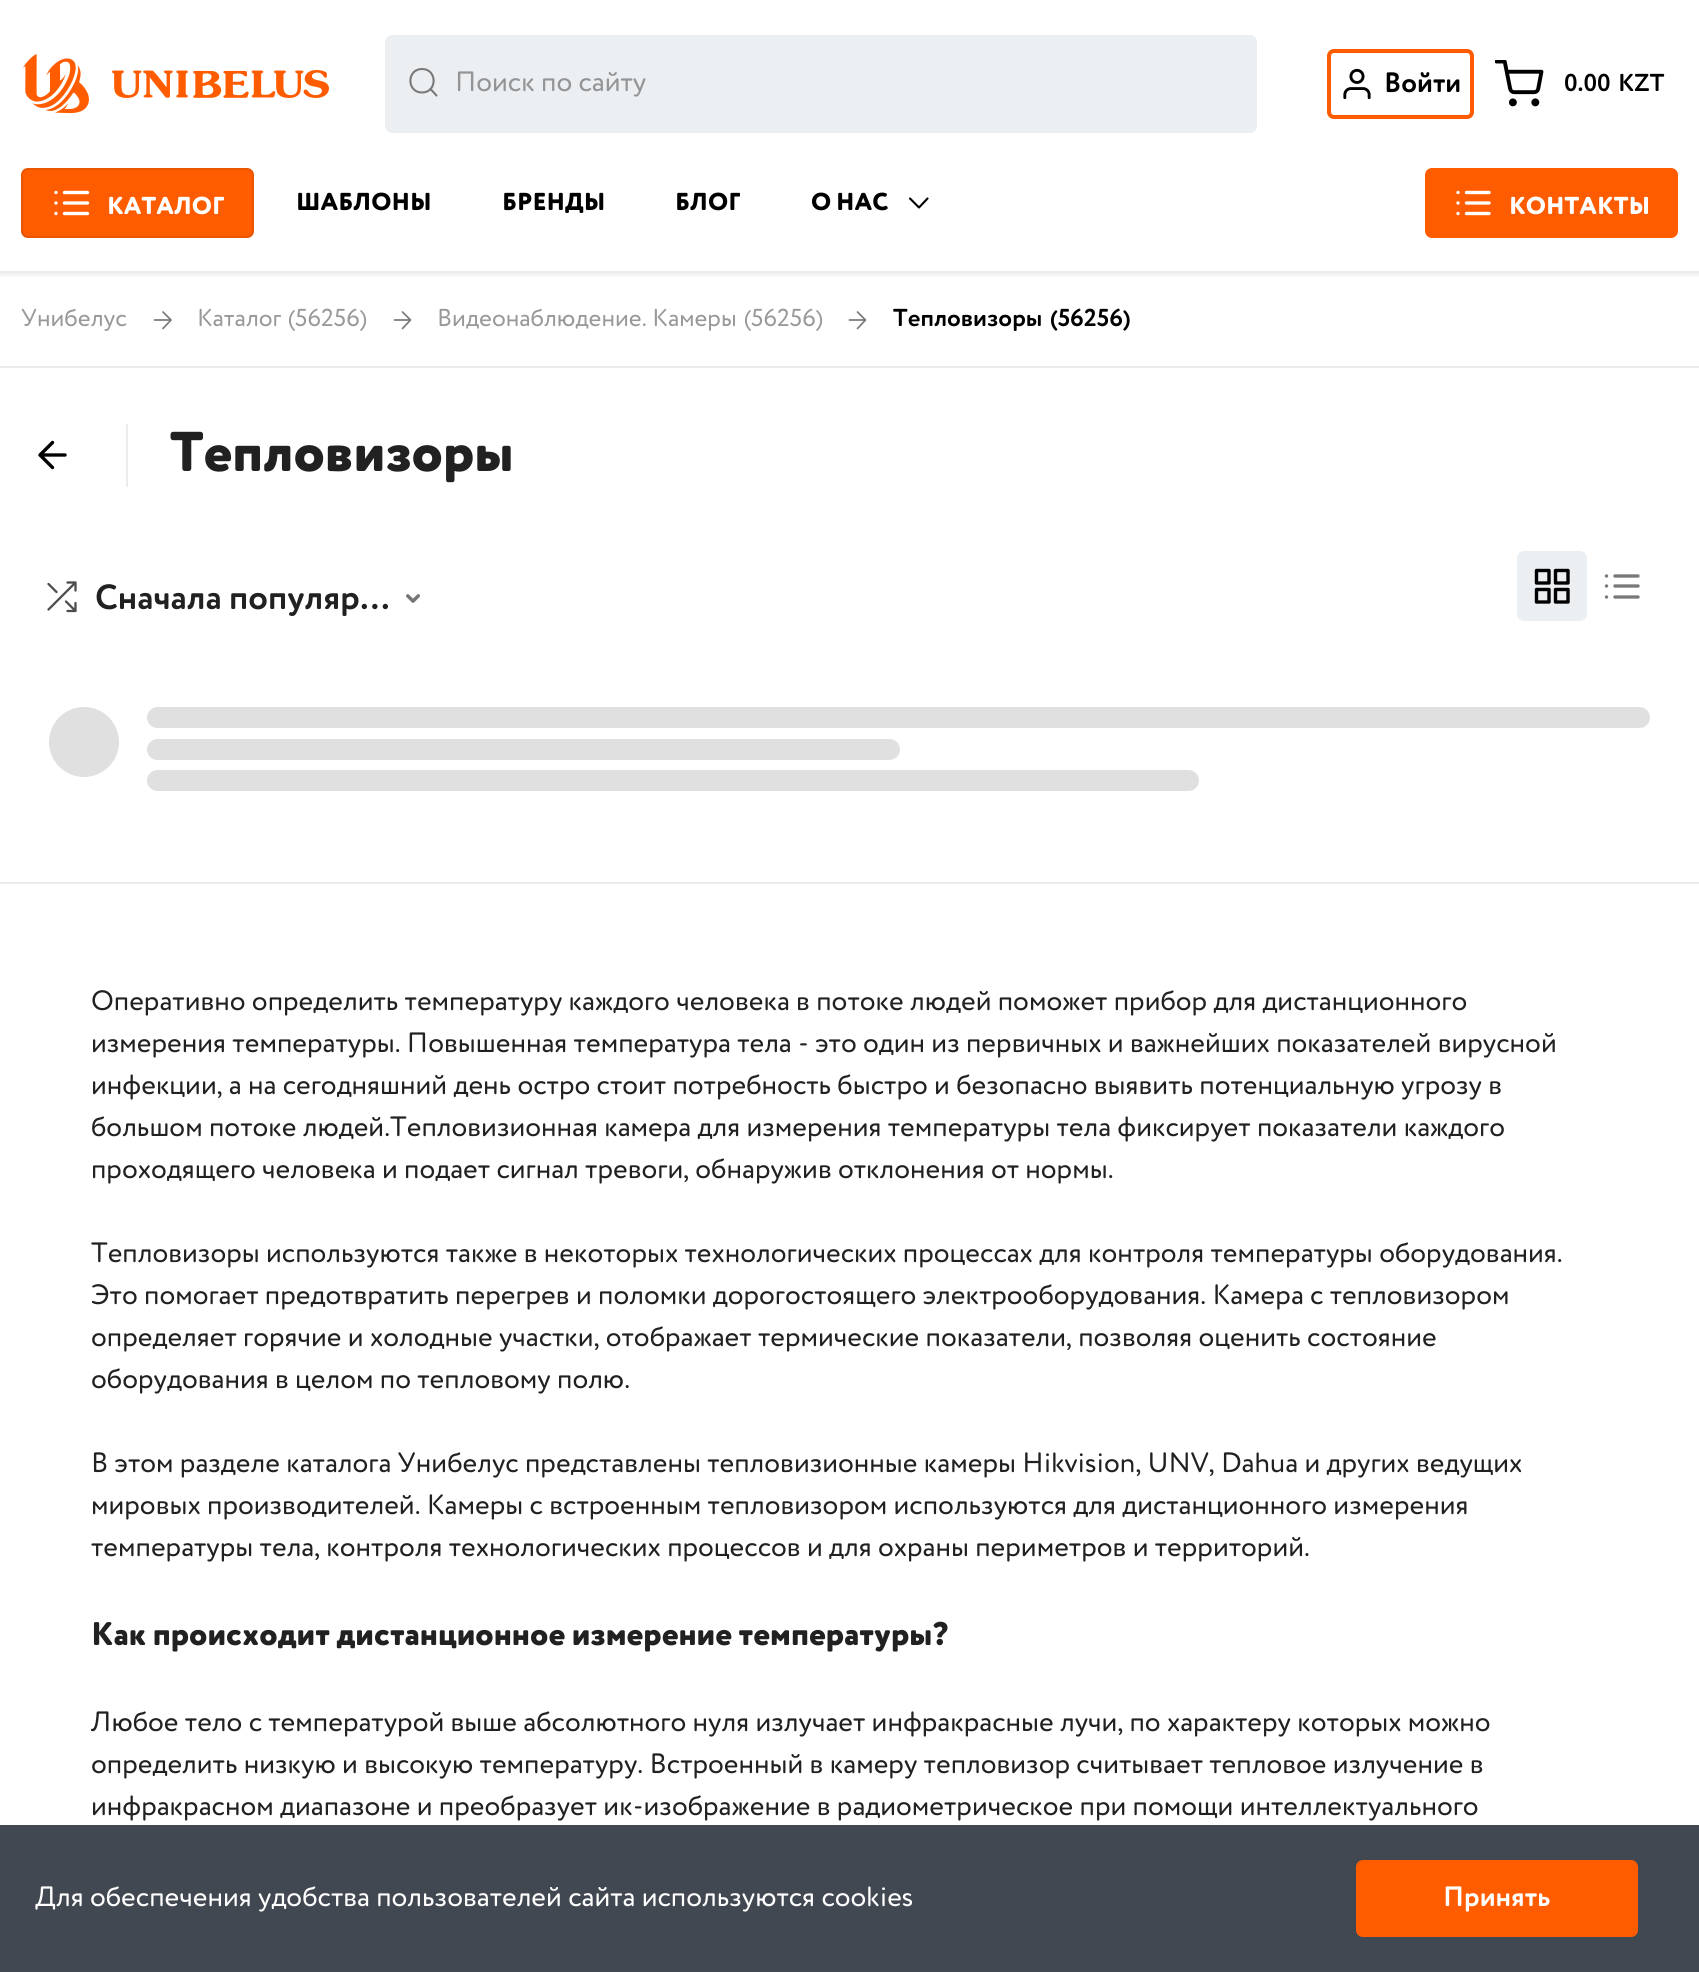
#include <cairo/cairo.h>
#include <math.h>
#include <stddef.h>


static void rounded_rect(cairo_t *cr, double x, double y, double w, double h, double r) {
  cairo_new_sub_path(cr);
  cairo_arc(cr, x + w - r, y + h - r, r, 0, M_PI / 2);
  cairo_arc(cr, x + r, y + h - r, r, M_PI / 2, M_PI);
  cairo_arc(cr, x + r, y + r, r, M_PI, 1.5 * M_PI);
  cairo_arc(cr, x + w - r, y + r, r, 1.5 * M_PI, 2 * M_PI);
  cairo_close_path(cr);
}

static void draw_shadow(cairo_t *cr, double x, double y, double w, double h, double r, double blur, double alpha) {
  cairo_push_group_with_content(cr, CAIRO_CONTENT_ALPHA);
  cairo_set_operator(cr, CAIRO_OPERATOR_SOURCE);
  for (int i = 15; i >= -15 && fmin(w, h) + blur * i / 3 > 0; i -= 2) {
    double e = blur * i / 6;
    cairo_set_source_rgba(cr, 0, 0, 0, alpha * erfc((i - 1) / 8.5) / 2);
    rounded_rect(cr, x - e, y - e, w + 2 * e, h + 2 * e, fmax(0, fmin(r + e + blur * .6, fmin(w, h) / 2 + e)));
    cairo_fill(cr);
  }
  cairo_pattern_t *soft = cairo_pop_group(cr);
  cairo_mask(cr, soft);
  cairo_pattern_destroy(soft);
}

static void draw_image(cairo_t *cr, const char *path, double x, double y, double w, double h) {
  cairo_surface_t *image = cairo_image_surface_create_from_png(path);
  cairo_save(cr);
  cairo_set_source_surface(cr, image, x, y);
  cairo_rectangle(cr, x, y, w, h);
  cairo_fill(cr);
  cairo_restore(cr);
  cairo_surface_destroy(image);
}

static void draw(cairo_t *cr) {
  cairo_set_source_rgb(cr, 1, 1, 1);
  cairo_paint(cr);
  cairo_save(cr);
  cairo_rectangle(cr, 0, 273, 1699, 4);
  cairo_clip(cr);
  cairo_set_source_rgb(cr, 0, 0, 0);
  draw_shadow(cr, 0, 0, 1699, 273, 0, 3.5, 0.14);
  cairo_restore(cr);
  cairo_set_source_rgb(cr, 235 / 255.0, 235 / 255.0, 235 / 255.0);
  cairo_rectangle(cr, 0, 271, 1699, 2);
  cairo_fill(cr);
  draw_image(cr, "images/1.png", 23, 54, 66, 60);
  draw_image(cr, "images/2.png", 112, 70, 217, 28);
  cairo_set_source_rgb(cr, 235 / 255.0, 239 / 255.0, 242 / 255.0);
  rounded_rect(cr, 385, 35, 872, 98, 7);
  cairo_fill(cr);
  cairo_new_path(cr);
  cairo_move_to(cr, 422, 92.5);
  cairo_curve_to(cr, 437.5, 92.5, 437.5, 69, 422, 69);
  cairo_curve_to(cr, 406.5, 69, 406.5, 92.5, 422, 92.5);
  cairo_close_path(cr);
  cairo_set_source_rgb(cr, 121 / 255.0, 121 / 255.0, 121 / 255.0);
  cairo_set_line_width(cr, 2.1);
  cairo_set_line_join(cr, CAIRO_LINE_JOIN_ROUND);
  cairo_stroke(cr);
  cairo_new_path(cr);
  cairo_move_to(cr, 436.5, 95.5);
  cairo_line_to(cr, 430.5, 89);
  cairo_set_line_cap(cr, CAIRO_LINE_CAP_ROUND);
  cairo_stroke(cr);
  rounded_rect(cr, 1329, 51, 143, 66, 5);
  cairo_set_source_rgb(cr, 1, 92 / 255.0, 0);
  cairo_set_line_width(cr, 4);
  cairo_set_line_cap(cr, CAIRO_LINE_CAP_BUTT);
  cairo_set_line_join(cr, CAIRO_LINE_JOIN_MITER);
  cairo_stroke(cr);
  draw_image(cr, "images/3.png", 1343, 68, 28, 32);
  draw_image(cr, "images/4.png", 1495, 60, 49, 47);
  rounded_rect(cr, 21, 168, 233, 70, 7);
  cairo_fill(cr);
  rounded_rect(cr, 22, 169, 231, 68, 6);
  cairo_set_source_rgba(cr, 0, 0, 0, 0.08);
  cairo_set_line_width(cr, 2);
  cairo_stroke(cr);
  cairo_new_path(cr);
  cairo_move_to(cr, 64.5, 192.5);
  cairo_line_to(cr, 87.5, 192.5);
  cairo_move_to(cr, 64.5, 203);
  cairo_line_to(cr, 87.5, 203);
  cairo_move_to(cr, 64.5, 213.5);
  cairo_line_to(cr, 87.5, 213.5);
  cairo_move_to(cr, 56, 192.5);
  cairo_line_to(cr, 56, 192.5);
  cairo_move_to(cr, 56, 203);
  cairo_line_to(cr, 56, 203);
  cairo_move_to(cr, 56, 213.5);
  cairo_line_to(cr, 56, 213.5);
  cairo_set_source_rgb(cr, 1, 1, 1);
  cairo_set_line_width(cr, 3.4);
  cairo_set_line_cap(cr, CAIRO_LINE_CAP_ROUND);
  cairo_set_line_join(cr, CAIRO_LINE_JOIN_ROUND);
  cairo_stroke(cr);
  cairo_new_path(cr);
  cairo_move_to(cr, 910, 198.5);
  cairo_line_to(cr, 919, 207.5);
  cairo_line_to(cr, 927.5, 198.5);
  cairo_set_source_rgb(cr, 0, 0, 0);
  cairo_set_line_width(cr, 2.1);
  cairo_stroke(cr);
  cairo_set_source_rgb(cr, 1, 92 / 255.0, 0);
  rounded_rect(cr, 1425, 168, 253, 70, 7);
  cairo_fill(cr);
  cairo_new_path(cr);
  cairo_move_to(cr, 1466.5, 192.5);
  cairo_line_to(cr, 1489, 192.5);
  cairo_move_to(cr, 1466.5, 203);
  cairo_line_to(cr, 1489, 203);
  cairo_move_to(cr, 1466.5, 213.5);
  cairo_line_to(cr, 1489, 213.5);
  cairo_move_to(cr, 1458, 192.5);
  cairo_line_to(cr, 1458, 192.5);
  cairo_move_to(cr, 1458, 203);
  cairo_line_to(cr, 1458, 203);
  cairo_move_to(cr, 1458, 213.5);
  cairo_line_to(cr, 1458, 213.5);
  cairo_set_source_rgb(cr, 1, 1, 1);
  cairo_set_line_width(cr, 3.4);
  cairo_stroke(cr);
  cairo_set_source_rgb(cr, 235 / 255.0, 235 / 255.0, 235 / 255.0);
  cairo_rectangle(cr, 0, 366, 1699, 2);
  cairo_fill(cr);
  cairo_new_path(cr);
  cairo_move_to(cr, 154.5, 320);
  cairo_line_to(cr, 171, 320);
  cairo_move_to(cr, 163, 312);
  cairo_line_to(cr, 171, 320);
  cairo_line_to(cr, 163, 328.5);
  cairo_set_source_rgb(cr, 121 / 255.0, 121 / 255.0, 121 / 255.0);
  cairo_set_line_width(cr, 1.7);
  cairo_stroke(cr);
  cairo_new_path(cr);
  cairo_move_to(cr, 394.5, 320);
  cairo_line_to(cr, 410.5, 320);
  cairo_move_to(cr, 402.5, 312);
  cairo_line_to(cr, 410.5, 320);
  cairo_line_to(cr, 402.5, 328.5);
  cairo_stroke(cr);
  cairo_new_path(cr);
  cairo_move_to(cr, 849.5, 320);
  cairo_line_to(cr, 865.5, 320);
  cairo_move_to(cr, 857.5, 312);
  cairo_line_to(cr, 865.5, 320);
  cairo_line_to(cr, 857.5, 328.5);
  cairo_stroke(cr);
  cairo_new_path(cr);
  cairo_move_to(cr, 65, 455);
  cairo_line_to(cr, 40, 455);
  cairo_move_to(cr, 52.5, 467.5);
  cairo_line_to(cr, 40, 455);
  cairo_line_to(cr, 52.5, 442.5);
  cairo_set_source_rgb(cr, 0, 0, 0);
  cairo_set_line_width(cr, 3.4);
  cairo_stroke(cr);
  cairo_set_source_rgb(cr, 235 / 255.0, 235 / 255.0, 235 / 255.0);
  cairo_rectangle(cr, 126, 424, 2, 63);
  cairo_fill(cr);
  cairo_new_path(cr);
  cairo_move_to(cr, 67.5, 582.5);
  cairo_line_to(cr, 75.5, 582.5);
  cairo_line_to(cr, 75.5, 590.5);
  cairo_move_to(cr, 48.5, 609.5);
  cairo_line_to(cr, 75.5, 582.5);
  cairo_move_to(cr, 75.5, 603);
  cairo_line_to(cr, 75.5, 611);
  cairo_line_to(cr, 67.5, 611);
  cairo_move_to(cr, 66, 601.5);
  cairo_line_to(cr, 75.5, 611);
  cairo_move_to(cr, 48.5, 584);
  cairo_line_to(cr, 56.5, 592);
  cairo_set_source_rgb(cr, 77 / 255.0, 77 / 255.0, 77 / 255.0);
  cairo_set_line_width(cr, 2.3);
  cairo_stroke(cr);
  draw_image(cr, "images/5.png", 406, 594, 14, 9);
  cairo_set_source_rgb(cr, 235 / 255.0, 239 / 255.0, 242 / 255.0);
  rounded_rect(cr, 1517, 551, 70, 70, 7);
  cairo_fill(cr);
  cairo_new_path(cr);
  cairo_move_to(cr, 1549, 570.5);
  cairo_line_to(cr, 1536.5, 570.5);
  cairo_line_to(cr, 1536.5, 583);
  cairo_line_to(cr, 1549, 583);
  cairo_close_path(cr);
  cairo_move_to(cr, 1568, 570.5);
  cairo_line_to(cr, 1555.5, 570.5);
  cairo_line_to(cr, 1555.5, 583);
  cairo_line_to(cr, 1568, 583);
  cairo_close_path(cr);
  cairo_move_to(cr, 1568, 589.5);
  cairo_line_to(cr, 1555.5, 589.5);
  cairo_line_to(cr, 1555.5, 602);
  cairo_line_to(cr, 1568, 602);
  cairo_close_path(cr);
  cairo_move_to(cr, 1549, 589.5);
  cairo_line_to(cr, 1536.5, 589.5);
  cairo_line_to(cr, 1536.5, 602);
  cairo_line_to(cr, 1549, 602);
  cairo_close_path(cr);
  cairo_set_source_rgb(cr, 0, 0, 0);
  cairo_set_line_width(cr, 3.4);
  cairo_set_line_cap(cr, CAIRO_LINE_CAP_BUTT);
  cairo_stroke(cr);
  cairo_new_path(cr);
  cairo_move_to(cr, 1615, 576);
  cairo_line_to(cr, 1638, 576);
  cairo_move_to(cr, 1615, 586);
  cairo_line_to(cr, 1638, 586);
  cairo_move_to(cr, 1615, 597);
  cairo_line_to(cr, 1638, 597);
  cairo_move_to(cr, 1606.5, 576);
  cairo_line_to(cr, 1606.5, 576);
  cairo_move_to(cr, 1606.5, 586);
  cairo_line_to(cr, 1606.5, 586);
  cairo_move_to(cr, 1606.5, 597);
  cairo_line_to(cr, 1606.5, 597);
  cairo_set_source_rgb(cr, 121 / 255.0, 121 / 255.0, 121 / 255.0);
  cairo_set_line_cap(cr, CAIRO_LINE_CAP_ROUND);
  cairo_stroke(cr);
  cairo_set_source_rgb(cr, 224 / 255.0, 224 / 255.0, 224 / 255.0);
  cairo_arc(cr, 84, 742, 35, 0, 2 * M_PI);
  cairo_fill(cr);
  rounded_rect(cr, 147, 707, 1503, 21, 10.5);
  cairo_fill(cr);
  rounded_rect(cr, 147, 739, 753, 21, 10.5);
  cairo_fill(cr);
  rounded_rect(cr, 147, 770, 1052, 21, 10.5);
  cairo_fill(cr);
  cairo_set_source_rgb(cr, 235 / 255.0, 235 / 255.0, 235 / 255.0);
  cairo_rectangle(cr, 0, 882, 1699, 2);
  cairo_fill(cr);
  cairo_set_source_rgb(cr, 66 / 255.0, 72 / 255.0, 81 / 255.0);
  cairo_rectangle(cr, 0, 1825, 1699, 147);
  cairo_fill(cr);
  cairo_set_source_rgb(cr, 1, 92 / 255.0, 0);
  rounded_rect(cr, 1356, 1860, 282, 77, 7);
  cairo_fill(cr);
  cairo_select_font_face(cr, "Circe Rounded", CAIRO_FONT_SLANT_NORMAL, CAIRO_FONT_WEIGHT_NORMAL);
  cairo_set_font_size(cr, 28);
  cairo_set_source_rgb(cr, 146 / 255.0, 148 / 255.0, 150 / 255.0);
  cairo_move_to(cr, 455, 91);
  cairo_show_text(cr, "Поиск по сайту");
  cairo_select_font_face(cr, "Circe Rounded", CAIRO_FONT_SLANT_NORMAL, CAIRO_FONT_WEIGHT_BOLD);
  cairo_set_source_rgb(cr, 0, 0, 0);
  cairo_move_to(cr, 1384, 92);
  cairo_show_text(cr, "Войти");
  cairo_set_font_size(cr, 24.5);
  cairo_move_to(cr, 1564, 91);
  cairo_show_text(cr, "0.00");
  cairo_move_to(cr, 1618, 91);
  cairo_show_text(cr, "KZT");
  cairo_select_font_face(cr, "Circe Rounded ExtraBold", CAIRO_FONT_SLANT_NORMAL, CAIRO_FONT_WEIGHT_NORMAL);
  cairo_set_source_rgb(cr, 1, 1, 1);
  cairo_move_to(cr, 107, 214);
  cairo_show_text(cr, "КАТАЛОГ");
  cairo_set_source_rgb(cr, 0, 0, 0);
  cairo_move_to(cr, 296, 210);
  cairo_show_text(cr, "ШАБЛОНЫ");
  cairo_move_to(cr, 502, 210);
  cairo_show_text(cr, "БРЕНДЫ");
  cairo_save(cr);
  cairo_rectangle(cr, 676, 186, 64, 35);
  cairo_clip(cr);
  cairo_move_to(cr, 675, 210);
  cairo_show_text(cr, "БЛОГ");
  cairo_restore(cr);
  cairo_move_to(cr, 811, 210);
  cairo_show_text(cr, "О НАС");
  cairo_set_source_rgb(cr, 1, 1, 1);
  cairo_move_to(cr, 1509, 214);
  cairo_show_text(cr, "КОНТАКТЫ");
  cairo_select_font_face(cr, "Circe Rounded", CAIRO_FONT_SLANT_NORMAL, CAIRO_FONT_WEIGHT_NORMAL);
  cairo_set_source_rgb(cr, 153 / 255.0, 153 / 255.0, 153 / 255.0);
  cairo_move_to(cr, 21, 326);
  cairo_show_text(cr, "Унибелус");
  cairo_move_to(cr, 197, 326);
  cairo_show_text(cr, "Каталог");
  cairo_move_to(cr, 288, 326);
  cairo_show_text(cr, "(56256)");
  cairo_move_to(cr, 437, 326);
  cairo_show_text(cr, "Видеонаблюдение. Камеры");
  cairo_move_to(cr, 744, 326);
  cairo_show_text(cr, "(56256)");
  cairo_select_font_face(cr, "Circe Rounded", CAIRO_FONT_SLANT_NORMAL, CAIRO_FONT_WEIGHT_BOLD);
  cairo_set_source_rgb(cr, 0, 0, 0);
  cairo_move_to(cr, 893, 326);
  cairo_show_text(cr, "Тепловизоры");
  cairo_move_to(cr, 1050, 326);
  cairo_show_text(cr, "(56256)");
  cairo_select_font_face(cr, "Circe Rounded ExtraBold", CAIRO_FONT_SLANT_NORMAL, CAIRO_FONT_WEIGHT_NORMAL);
  cairo_set_font_size(cr, 56);
  cairo_set_source_rgb(cr, 33 / 255.0, 33 / 255.0, 33 / 255.0);
  cairo_move_to(cr, 170, 471);
  cairo_show_text(cr, "Тепловизоры");
  cairo_select_font_face(cr, "Circe Rounded", CAIRO_FONT_SLANT_NORMAL, CAIRO_FONT_WEIGHT_BOLD);
  cairo_set_font_size(cr, 35);
  cairo_move_to(cr, 95, 609);
  cairo_show_text(cr, "Сначала популяр…");
  cairo_select_font_face(cr, "Circe Rounded", CAIRO_FONT_SLANT_NORMAL, CAIRO_FONT_WEIGHT_NORMAL);
  cairo_set_font_size(cr, 28);
  cairo_move_to(cr, 91, 1010);
  cairo_show_text(cr, "Оперативно определить температуру каждого человека в потоке людей поможет прибор для дистанционного");
  cairo_move_to(cr, 91, 1052);
  cairo_show_text(cr, "измерения температуры. Повышенная температура тела - это один из первичных и важнейших показателей вирусной");
  cairo_move_to(cr, 91, 1094);
  cairo_show_text(cr, "инфекции, а на сегодняшний день остро стоит потребность быстро и безопасно выявить потенциальную угрозу в");
  cairo_move_to(cr, 91, 1136);
  cairo_show_text(cr, "большом потоке людей.Тепловизионная камера для измерения температуры тела фиксирует показатели каждого");
  cairo_move_to(cr, 91, 1178);
  cairo_show_text(cr, "проходящего человека и подает сигнал тревоги, обнаружив отклонения от нормы.");
  cairo_move_to(cr, 91, 1262);
  cairo_show_text(cr, "Тепловизоры используются также в некоторых технологических процессах для контроля температуры оборудования.");
  cairo_move_to(cr, 91, 1304);
  cairo_show_text(cr, "Это помогает предотвратить перегрев и поломки дорогостоящего электрооборудования. Камера с тепловизором");
  cairo_move_to(cr, 91, 1346);
  cairo_show_text(cr, "определяет горячие и холодные участки, отображает термические показатели, позволяя оценить состояние");
  cairo_move_to(cr, 91, 1388);
  cairo_show_text(cr, "оборудования в целом по тепловому полю.");
  cairo_move_to(cr, 91, 1472);
  cairo_show_text(cr, "В этом разделе каталога Унибелус представлены тепловизионные камеры Hikvision, UNV, Dahua и других ведущих");
  cairo_move_to(cr, 91, 1514);
  cairo_show_text(cr, "мировых производителей. Камеры с встроенным тепловизором используются для дистанционного измерения");
  cairo_move_to(cr, 91, 1556);
  cairo_show_text(cr, "температуры тела, контроля технологических процессов и для охраны периметров и территорий.");
  cairo_select_font_face(cr, "Circe Rounded ExtraBold", CAIRO_FONT_SLANT_NORMAL, CAIRO_FONT_WEIGHT_NORMAL);
  cairo_set_font_size(cr, 32.75);
  cairo_move_to(cr, 91, 1645);
  cairo_show_text(cr, "Как происходит дистанционное измерение температуры?");
  cairo_select_font_face(cr, "Circe Rounded", CAIRO_FONT_SLANT_NORMAL, CAIRO_FONT_WEIGHT_NORMAL);
  cairo_set_font_size(cr, 28);
  cairo_move_to(cr, 91, 1731);
  cairo_show_text(cr, "Любое тело с температурой выше абсолютного нуля излучает инфракрасные лучи, по характеру которых можно");
  cairo_move_to(cr, 91, 1773);
  cairo_show_text(cr, "определить низкую и высокую температуру. Встроенный в камеру тепловизор считывает тепловое излучение в");
  cairo_move_to(cr, 91, 1815);
  cairo_show_text(cr, "инфракрасном диапазоне и преобразует ик-изображение в радиометрическое при помощи интеллектуального");
  cairo_set_source_rgb(cr, 1, 1, 1);
  cairo_move_to(cr, 35, 1906);
  cairo_show_text(cr, "Для обеспечения удобства пользователей сайта используются cookies");
  cairo_select_font_face(cr, "Circe Rounded", CAIRO_FONT_SLANT_NORMAL, CAIRO_FONT_WEIGHT_BOLD);
  cairo_move_to(cr, 1443, 1906);
  cairo_show_text(cr, "Принять");
}

int main(void) {
  cairo_surface_t *surface = cairo_image_surface_create(CAIRO_FORMAT_RGB24, 1699, 1972);
  cairo_t *cr = cairo_create(surface);
  cairo_font_options_t *options = cairo_font_options_create();
  cairo_font_options_set_hint_metrics(options, CAIRO_HINT_METRICS_OFF);
  cairo_font_options_set_hint_style(options, CAIRO_HINT_STYLE_NONE);
  cairo_set_font_options(cr, options);
  cairo_set_miter_limit(cr, 4);
  draw(cr);
  cairo_surface_write_to_png(surface, "out.png");
  cairo_font_options_destroy(options);
  cairo_destroy(cr);
  cairo_surface_destroy(surface);
  return 0;
}
